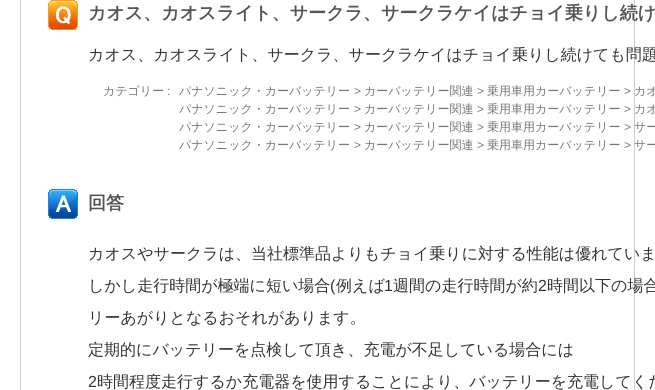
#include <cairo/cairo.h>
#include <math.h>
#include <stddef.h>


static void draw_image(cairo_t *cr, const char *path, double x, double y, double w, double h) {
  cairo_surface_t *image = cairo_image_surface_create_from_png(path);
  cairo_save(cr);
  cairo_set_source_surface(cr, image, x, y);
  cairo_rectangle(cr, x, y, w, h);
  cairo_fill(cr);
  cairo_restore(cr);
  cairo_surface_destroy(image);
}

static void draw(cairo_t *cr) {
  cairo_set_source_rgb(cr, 1, 1, 1);
  cairo_paint(cr);
  cairo_rectangle(cr, 20.5, -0.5, 614, 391);
  cairo_set_source_rgb(cr, 204 / 255.0, 204 / 255.0, 204 / 255.0);
  cairo_set_line_width(cr, 1);
  cairo_stroke(cr);
  draw_image(cr, "images/1.png", 48, 0, 30, 30);
  draw_image(cr, "images/2.png", 48, 189, 30, 30);
  cairo_select_font_face(cr, "WenQuanYi Zen Hei", CAIRO_FONT_SLANT_NORMAL, CAIRO_FONT_WEIGHT_BOLD);
  cairo_set_font_size(cr, 18);
  cairo_set_source_rgb(cr, 85 / 255.0, 85 / 255.0, 85 / 255.0);
  cairo_move_to(cr, 88, 19);
  cairo_show_text(cr, "カオス、カオスライト、サークラ、サークラケイはチョイ乗りし続け");
  cairo_select_font_face(cr, "WenQuanYi Zen Hei Medium", CAIRO_FONT_SLANT_NORMAL, CAIRO_FONT_WEIGHT_NORMAL);
  cairo_set_font_size(cr, 16);
  cairo_set_source_rgb(cr, 51 / 255.0, 51 / 255.0, 51 / 255.0);
  cairo_move_to(cr, 88, 60);
  cairo_show_text(cr, "カオス、カオスライト、サークラ、サークラケイはチョイ乗りし続けても問題");
  cairo_set_font_size(cr, 12);
  cairo_set_source_rgb(cr, 118 / 255.0, 118 / 255.0, 118 / 255.0);
  cairo_move_to(cr, 103, 95);
  cairo_show_text(cr, "カテゴリー");
  cairo_select_font_face(cr, "Liberation Sans", CAIRO_FONT_SLANT_NORMAL, CAIRO_FONT_WEIGHT_NORMAL);
  cairo_move_to(cr, 167, 95);
  cairo_show_text(cr, ":");
  cairo_select_font_face(cr, "WenQuanYi Zen Hei Medium", CAIRO_FONT_SLANT_NORMAL, CAIRO_FONT_WEIGHT_NORMAL);
  cairo_move_to(cr, 179, 95);
  cairo_show_text(cr, "パナソニック・カーバッテリー");
  cairo_select_font_face(cr, "Liberation Sans", CAIRO_FONT_SLANT_NORMAL, CAIRO_FONT_WEIGHT_NORMAL);
  cairo_move_to(cr, 354, 95);
  cairo_show_text(cr, ">");
  cairo_select_font_face(cr, "WenQuanYi Zen Hei Medium", CAIRO_FONT_SLANT_NORMAL, CAIRO_FONT_WEIGHT_NORMAL);
  cairo_move_to(cr, 364, 95);
  cairo_show_text(cr, "カーバッテリー関連");
  cairo_select_font_face(cr, "Liberation Sans", CAIRO_FONT_SLANT_NORMAL, CAIRO_FONT_WEIGHT_NORMAL);
  cairo_move_to(cr, 477, 95);
  cairo_show_text(cr, ">");
  cairo_select_font_face(cr, "WenQuanYi Zen Hei Medium", CAIRO_FONT_SLANT_NORMAL, CAIRO_FONT_WEIGHT_NORMAL);
  cairo_move_to(cr, 487, 95);
  cairo_show_text(cr, "乗用車用カーバッテリー");
  cairo_select_font_face(cr, "Liberation Sans", CAIRO_FONT_SLANT_NORMAL, CAIRO_FONT_WEIGHT_NORMAL);
  cairo_move_to(cr, 624, 95);
  cairo_show_text(cr, ">");
  cairo_select_font_face(cr, "WenQuanYi Zen Hei Medium", CAIRO_FONT_SLANT_NORMAL, CAIRO_FONT_WEIGHT_NORMAL);
  cairo_move_to(cr, 634, 95);
  cairo_show_text(cr, "カオ");
  cairo_move_to(cr, 179, 113);
  cairo_show_text(cr, "パナソニック・カーバッテリー");
  cairo_select_font_face(cr, "Liberation Sans", CAIRO_FONT_SLANT_NORMAL, CAIRO_FONT_WEIGHT_NORMAL);
  cairo_move_to(cr, 354, 113);
  cairo_show_text(cr, ">");
  cairo_select_font_face(cr, "WenQuanYi Zen Hei Medium", CAIRO_FONT_SLANT_NORMAL, CAIRO_FONT_WEIGHT_NORMAL);
  cairo_move_to(cr, 364, 113);
  cairo_show_text(cr, "カーバッテリー関連");
  cairo_select_font_face(cr, "Liberation Sans", CAIRO_FONT_SLANT_NORMAL, CAIRO_FONT_WEIGHT_NORMAL);
  cairo_move_to(cr, 477, 113);
  cairo_show_text(cr, ">");
  cairo_select_font_face(cr, "WenQuanYi Zen Hei Medium", CAIRO_FONT_SLANT_NORMAL, CAIRO_FONT_WEIGHT_NORMAL);
  cairo_move_to(cr, 487, 113);
  cairo_show_text(cr, "乗用車用カーバッテリー");
  cairo_select_font_face(cr, "Liberation Sans", CAIRO_FONT_SLANT_NORMAL, CAIRO_FONT_WEIGHT_NORMAL);
  cairo_move_to(cr, 624, 113);
  cairo_show_text(cr, ">");
  cairo_select_font_face(cr, "WenQuanYi Zen Hei Medium", CAIRO_FONT_SLANT_NORMAL, CAIRO_FONT_WEIGHT_NORMAL);
  cairo_move_to(cr, 634, 113);
  cairo_show_text(cr, "カオ");
  cairo_move_to(cr, 179, 131);
  cairo_show_text(cr, "パナソニック・カーバッテリー");
  cairo_select_font_face(cr, "Liberation Sans", CAIRO_FONT_SLANT_NORMAL, CAIRO_FONT_WEIGHT_NORMAL);
  cairo_move_to(cr, 354, 131);
  cairo_show_text(cr, ">");
  cairo_select_font_face(cr, "WenQuanYi Zen Hei Medium", CAIRO_FONT_SLANT_NORMAL, CAIRO_FONT_WEIGHT_NORMAL);
  cairo_move_to(cr, 364, 131);
  cairo_show_text(cr, "カーバッテリー関連");
  cairo_select_font_face(cr, "Liberation Sans", CAIRO_FONT_SLANT_NORMAL, CAIRO_FONT_WEIGHT_NORMAL);
  cairo_move_to(cr, 477, 131);
  cairo_show_text(cr, ">");
  cairo_select_font_face(cr, "WenQuanYi Zen Hei Medium", CAIRO_FONT_SLANT_NORMAL, CAIRO_FONT_WEIGHT_NORMAL);
  cairo_move_to(cr, 487, 131);
  cairo_show_text(cr, "乗用車用カーバッテリー");
  cairo_select_font_face(cr, "Liberation Sans", CAIRO_FONT_SLANT_NORMAL, CAIRO_FONT_WEIGHT_NORMAL);
  cairo_move_to(cr, 624, 131);
  cairo_show_text(cr, ">");
  cairo_select_font_face(cr, "WenQuanYi Zen Hei Medium", CAIRO_FONT_SLANT_NORMAL, CAIRO_FONT_WEIGHT_NORMAL);
  cairo_move_to(cr, 634, 131);
  cairo_show_text(cr, "サー");
  cairo_move_to(cr, 179, 149);
  cairo_show_text(cr, "パナソニック・カーバッテリー");
  cairo_select_font_face(cr, "Liberation Sans", CAIRO_FONT_SLANT_NORMAL, CAIRO_FONT_WEIGHT_NORMAL);
  cairo_move_to(cr, 354, 149);
  cairo_show_text(cr, ">");
  cairo_select_font_face(cr, "WenQuanYi Zen Hei Medium", CAIRO_FONT_SLANT_NORMAL, CAIRO_FONT_WEIGHT_NORMAL);
  cairo_move_to(cr, 364, 149);
  cairo_show_text(cr, "カーバッテリー関連");
  cairo_select_font_face(cr, "Liberation Sans", CAIRO_FONT_SLANT_NORMAL, CAIRO_FONT_WEIGHT_NORMAL);
  cairo_move_to(cr, 477, 149);
  cairo_show_text(cr, ">");
  cairo_select_font_face(cr, "WenQuanYi Zen Hei Medium", CAIRO_FONT_SLANT_NORMAL, CAIRO_FONT_WEIGHT_NORMAL);
  cairo_move_to(cr, 487, 149);
  cairo_show_text(cr, "乗用車用カーバッテリー");
  cairo_select_font_face(cr, "Liberation Sans", CAIRO_FONT_SLANT_NORMAL, CAIRO_FONT_WEIGHT_NORMAL);
  cairo_move_to(cr, 624, 149);
  cairo_show_text(cr, ">");
  cairo_select_font_face(cr, "WenQuanYi Zen Hei Medium", CAIRO_FONT_SLANT_NORMAL, CAIRO_FONT_WEIGHT_NORMAL);
  cairo_move_to(cr, 634, 149);
  cairo_show_text(cr, "サー");
  cairo_select_font_face(cr, "WenQuanYi Zen Hei", CAIRO_FONT_SLANT_NORMAL, CAIRO_FONT_WEIGHT_BOLD);
  cairo_set_font_size(cr, 18);
  cairo_set_source_rgb(cr, 85 / 255.0, 85 / 255.0, 85 / 255.0);
  cairo_move_to(cr, 88, 209);
  cairo_show_text(cr, "回答");
  cairo_select_font_face(cr, "WenQuanYi Zen Hei Medium", CAIRO_FONT_SLANT_NORMAL, CAIRO_FONT_WEIGHT_NORMAL);
  cairo_set_font_size(cr, 16);
  cairo_set_source_rgb(cr, 51 / 255.0, 51 / 255.0, 51 / 255.0);
  cairo_move_to(cr, 88, 259);
  cairo_show_text(cr, "カオスやサークラは、当社標準品よりもチョイ乗りに対する性能は優れていま");
  cairo_move_to(cr, 88, 291);
  cairo_show_text(cr, "しかし走行時間が極端に短い場合");
  cairo_select_font_face(cr, "Liberation Sans", CAIRO_FONT_SLANT_NORMAL, CAIRO_FONT_WEIGHT_NORMAL);
  cairo_move_to(cr, 330, 291);
  cairo_show_text(cr, "(");
  cairo_select_font_face(cr, "WenQuanYi Zen Hei Medium", CAIRO_FONT_SLANT_NORMAL, CAIRO_FONT_WEIGHT_NORMAL);
  cairo_move_to(cr, 336, 291);
  cairo_show_text(cr, "例えば");
  cairo_select_font_face(cr, "Liberation Sans", CAIRO_FONT_SLANT_NORMAL, CAIRO_FONT_WEIGHT_NORMAL);
  cairo_move_to(cr, 384, 291);
  cairo_show_text(cr, "1");
  cairo_select_font_face(cr, "WenQuanYi Zen Hei Medium", CAIRO_FONT_SLANT_NORMAL, CAIRO_FONT_WEIGHT_NORMAL);
  cairo_move_to(cr, 393, 291);
  cairo_show_text(cr, "週間の走行時間が約");
  cairo_select_font_face(cr, "Liberation Sans", CAIRO_FONT_SLANT_NORMAL, CAIRO_FONT_WEIGHT_NORMAL);
  cairo_move_to(cr, 538, 291);
  cairo_show_text(cr, "2");
  cairo_select_font_face(cr, "WenQuanYi Zen Hei Medium", CAIRO_FONT_SLANT_NORMAL, CAIRO_FONT_WEIGHT_NORMAL);
  cairo_move_to(cr, 547, 291);
  cairo_show_text(cr, "時間以下の場合");
  cairo_move_to(cr, 88, 323);
  cairo_show_text(cr, "リーあがりとなるおそれがあります。");
  cairo_move_to(cr, 88, 355);
  cairo_show_text(cr, "定期的にバッテリーを点検して頂き、充電が不足している場合には");
  cairo_select_font_face(cr, "Liberation Sans", CAIRO_FONT_SLANT_NORMAL, CAIRO_FONT_WEIGHT_NORMAL);
  cairo_move_to(cr, 88, 387);
  cairo_show_text(cr, "2");
  cairo_select_font_face(cr, "WenQuanYi Zen Hei Medium", CAIRO_FONT_SLANT_NORMAL, CAIRO_FONT_WEIGHT_NORMAL);
  cairo_move_to(cr, 97, 387);
  cairo_show_text(cr, "時間程度走行するか充電器を使用することにより、バッテリーを充電してくだ");
}

int main(void) {
  cairo_surface_t *surface = cairo_image_surface_create(CAIRO_FORMAT_RGB24, 655, 390);
  cairo_t *cr = cairo_create(surface);
  cairo_font_options_t *options = cairo_font_options_create();
  cairo_font_options_set_hint_metrics(options, CAIRO_HINT_METRICS_OFF);
  cairo_font_options_set_hint_style(options, CAIRO_HINT_STYLE_NONE);
  cairo_set_font_options(cr, options);
  cairo_set_miter_limit(cr, 4);
  draw(cr);
  cairo_surface_write_to_png(surface, "out.png");
  cairo_font_options_destroy(options);
  cairo_destroy(cr);
  cairo_surface_destroy(surface);
  return 0;
}
